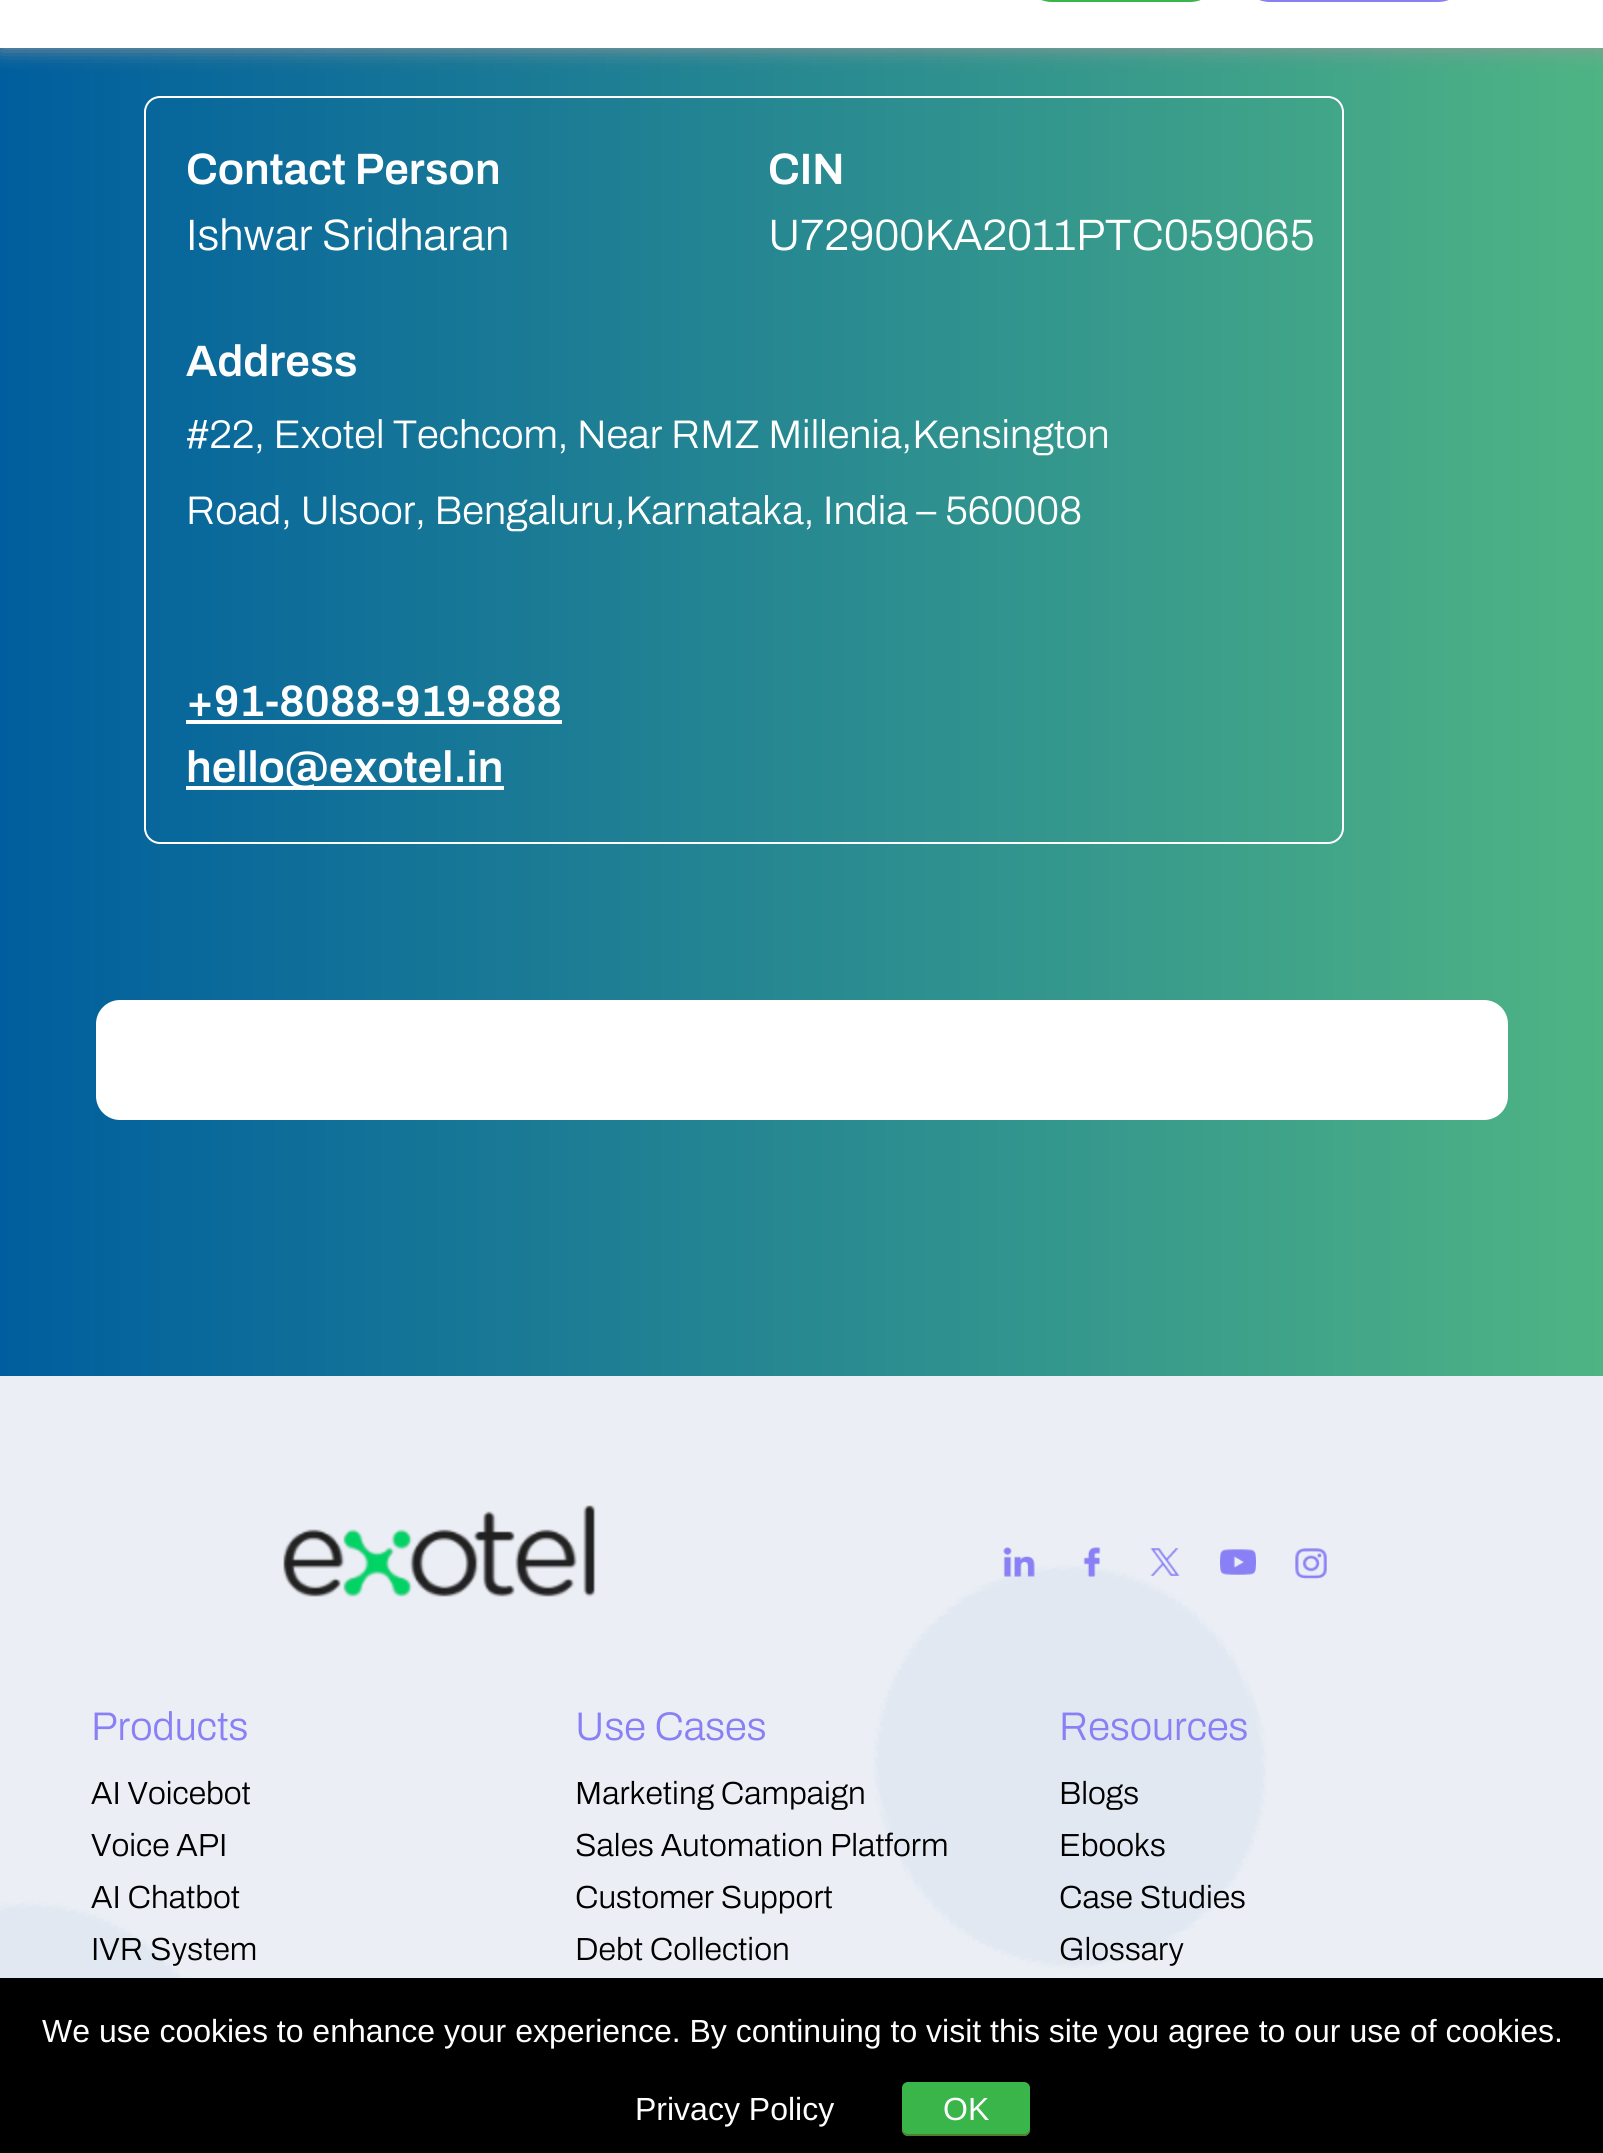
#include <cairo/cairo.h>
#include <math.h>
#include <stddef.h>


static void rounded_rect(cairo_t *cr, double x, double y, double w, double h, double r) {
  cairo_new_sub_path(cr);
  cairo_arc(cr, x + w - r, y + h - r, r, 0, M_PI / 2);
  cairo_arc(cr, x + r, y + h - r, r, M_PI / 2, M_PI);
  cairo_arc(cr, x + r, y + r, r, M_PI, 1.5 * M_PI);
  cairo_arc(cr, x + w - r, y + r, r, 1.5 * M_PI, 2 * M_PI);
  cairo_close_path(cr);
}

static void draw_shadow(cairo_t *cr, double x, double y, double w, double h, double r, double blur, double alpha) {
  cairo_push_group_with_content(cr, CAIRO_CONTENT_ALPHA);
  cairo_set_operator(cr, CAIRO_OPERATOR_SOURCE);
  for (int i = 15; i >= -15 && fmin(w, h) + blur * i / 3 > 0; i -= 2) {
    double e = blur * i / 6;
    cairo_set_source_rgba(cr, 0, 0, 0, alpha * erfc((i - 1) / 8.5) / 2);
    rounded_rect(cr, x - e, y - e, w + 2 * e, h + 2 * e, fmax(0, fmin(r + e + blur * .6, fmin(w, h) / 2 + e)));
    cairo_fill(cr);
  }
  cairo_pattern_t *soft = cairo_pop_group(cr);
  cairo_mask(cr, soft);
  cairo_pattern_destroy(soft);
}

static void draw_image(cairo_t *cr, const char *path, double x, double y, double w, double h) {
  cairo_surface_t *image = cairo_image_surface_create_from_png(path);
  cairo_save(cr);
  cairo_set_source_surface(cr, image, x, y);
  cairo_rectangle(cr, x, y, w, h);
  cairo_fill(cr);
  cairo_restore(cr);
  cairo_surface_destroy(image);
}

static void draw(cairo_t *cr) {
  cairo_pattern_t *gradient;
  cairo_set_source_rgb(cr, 1, 1, 1);
  cairo_paint(cr);
  gradient = cairo_pattern_create_linear(0, 285, 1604, 285);
  cairo_pattern_add_color_stop_rgba(gradient, 0, 0, 94 / 255.0, 158 / 255.0, 1);
  cairo_pattern_add_color_stop_rgba(gradient, 1, 79 / 255.0, 180 / 255.0, 132 / 255.0, 1);
  cairo_set_source(cr, gradient);
  cairo_pattern_destroy(gradient);
  cairo_rectangle(cr, 0, 48, 1603, 1328);
  cairo_fill(cr);
  cairo_set_source_rgb(cr, 153 / 255.0, 153 / 255.0, 153 / 255.0);
  draw_shadow(cr, 0, -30, 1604, 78, 0, 10, 1);
  cairo_set_source_rgb(cr, 1, 1, 1);
  cairo_rectangle(cr, 0, 0, 1603, 48);
  cairo_fill(cr);
  rounded_rect(cr, 1024, -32, 194, 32, 28);
  cairo_set_source_rgb(cr, 57 / 255.0, 181 / 255.0, 74 / 255.0);
  cairo_set_line_width(cr, 4);
  cairo_stroke(cr);
  cairo_set_source_rgb(cr, 136 / 255.0, 127 / 255.0, 242 / 255.0);
  rounded_rect(cr, 1240, -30, 228, 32, 30);
  cairo_fill(cr);
  rounded_rect(cr, 145, 97, 1198, 746, 15);
  cairo_set_source_rgb(cr, 1, 1, 1);
  cairo_set_line_width(cr, 2);
  cairo_stroke(cr);
  cairo_rectangle(cr, 186, 720, 376, 4);
  cairo_fill(cr);
  cairo_rectangle(cr, 186, 786, 318, 4);
  cairo_fill(cr);
  rounded_rect(cr, 96, 1000, 1412, 120, 24);
  cairo_fill(cr);
  cairo_set_source_rgb(cr, 235 / 255.0, 239 / 255.0, 245 / 255.0);
  cairo_rectangle(cr, 0, 1376, 1603, 602);
  cairo_fill(cr);
  draw_image(cr, "images/1.png", 0, 1565, 1267, 413);
  draw_image(cr, "images/2.png", 283, 1505, 313, 92);
  draw_image(cr, "images/3.png", 1003, 1547, 32, 30);
  draw_image(cr, "images/4.png", 1083, 1547, 18, 30);
  draw_image(cr, "images/5.png", 1150, 1548, 30, 28);
  draw_image(cr, "images/6.png", 1220, 1549, 36, 26);
  draw_image(cr, "images/7.png", 1295, 1548, 32, 31);
  cairo_set_source_rgb(cr, 0, 0, 0);
  cairo_rectangle(cr, 0, 1978, 1603, 175);
  cairo_fill(cr);
  cairo_set_source_rgb(cr, 57 / 255.0, 181 / 255.0, 74 / 255.0);
  rounded_rect(cr, 902, 2082, 128, 54, 6);
  cairo_fill(cr);
  cairo_set_source_rgb(cr, 80 / 255.0, 127 / 255.0, 43 / 255.0);
  cairo_new_path(cr);
  cairo_move_to(cr, 902, 2128);
  cairo_line_to(cr, 902, 2130);
  cairo_curve_to(cr, 902, 2133, 905, 2136, 908, 2136);
  cairo_line_to(cr, 1024, 2136);
  cairo_curve_to(cr, 1027, 2136, 1030, 2133, 1030, 2130);
  cairo_line_to(cr, 1030, 2128);
  cairo_curve_to(cr, 1030, 2131, 1027, 2134, 1024, 2134);
  cairo_line_to(cr, 908, 2134);
  cairo_curve_to(cr, 905, 2134, 902, 2131, 902, 2128);
  cairo_close_path(cr);
  cairo_fill(cr);
  cairo_select_font_face(cr, "Archivo SemiBold", CAIRO_FONT_SLANT_NORMAL, CAIRO_FONT_WEIGHT_NORMAL);
  cairo_set_font_size(cr, 44);
  cairo_set_source_rgb(cr, 1, 1, 1);
  cairo_move_to(cr, 186, 184);
  cairo_show_text(cr, "Contact Person");
  cairo_select_font_face(cr, "Archivo Light", CAIRO_FONT_SLANT_NORMAL, CAIRO_FONT_WEIGHT_NORMAL);
  cairo_move_to(cr, 186, 250);
  cairo_show_text(cr, "Ishwar Sridharan");
  cairo_select_font_face(cr, "Archivo SemiBold", CAIRO_FONT_SLANT_NORMAL, CAIRO_FONT_WEIGHT_NORMAL);
  cairo_move_to(cr, 768, 184);
  cairo_show_text(cr, "CIN");
  cairo_select_font_face(cr, "Archivo Light", CAIRO_FONT_SLANT_NORMAL, CAIRO_FONT_WEIGHT_NORMAL);
  cairo_move_to(cr, 768, 250);
  cairo_show_text(cr, "U72900KA2011PTC059065");
  cairo_select_font_face(cr, "Archivo SemiBold", CAIRO_FONT_SLANT_NORMAL, CAIRO_FONT_WEIGHT_NORMAL);
  cairo_move_to(cr, 186, 376);
  cairo_show_text(cr, "Address");
  cairo_select_font_face(cr, "Archivo Light", CAIRO_FONT_SLANT_NORMAL, CAIRO_FONT_WEIGHT_NORMAL);
  cairo_set_font_size(cr, 40);
  cairo_move_to(cr, 186, 448);
  cairo_show_text(cr, "#22, Exotel Techcom, Near RMZ Millenia,Kensington");
  cairo_move_to(cr, 186, 524);
  cairo_show_text(cr, "Road, Ulsoor, Bengaluru,Karnataka, India – 560008");
  cairo_select_font_face(cr, "Archivo SemiBold", CAIRO_FONT_SLANT_NORMAL, CAIRO_FONT_WEIGHT_NORMAL);
  cairo_set_font_size(cr, 44);
  cairo_move_to(cr, 186, 716);
  cairo_show_text(cr, "+91-8088-919-888");
  cairo_move_to(cr, 186, 782);
  cairo_show_text(cr, "hello@exotel.in");
  cairo_select_font_face(cr, "Archivo Light", CAIRO_FONT_SLANT_NORMAL, CAIRO_FONT_WEIGHT_NORMAL);
  cairo_set_font_size(cr, 40);
  cairo_set_source_rgb(cr, 137 / 255.0, 128 / 255.0, 245 / 255.0);
  cairo_move_to(cr, 91, 1740);
  cairo_show_text(cr, "Products");
  cairo_set_font_size(cr, 32);
  cairo_set_source_rgb(cr, 0, 0, 0);
  cairo_move_to(cr, 91, 1804);
  cairo_show_text(cr, "AI Voicebot");
  cairo_move_to(cr, 91, 1856);
  cairo_show_text(cr, "Voice API");
  cairo_move_to(cr, 91, 1908);
  cairo_show_text(cr, "AI Chatbot");
  cairo_move_to(cr, 91, 1960);
  cairo_show_text(cr, "IVR System");
  cairo_set_font_size(cr, 40);
  cairo_set_source_rgb(cr, 137 / 255.0, 128 / 255.0, 245 / 255.0);
  cairo_move_to(cr, 575, 1740);
  cairo_show_text(cr, "Use Cases");
  cairo_set_font_size(cr, 32);
  cairo_set_source_rgb(cr, 0, 0, 0);
  cairo_move_to(cr, 575, 1804);
  cairo_show_text(cr, "Marketing Campaign");
  cairo_move_to(cr, 575, 1856);
  cairo_show_text(cr, "Sales Automation Platform");
  cairo_move_to(cr, 575, 1908);
  cairo_show_text(cr, "Customer Support");
  cairo_move_to(cr, 575, 1960);
  cairo_show_text(cr, "Debt Collection");
  cairo_set_font_size(cr, 40);
  cairo_set_source_rgb(cr, 137 / 255.0, 128 / 255.0, 245 / 255.0);
  cairo_move_to(cr, 1059, 1740);
  cairo_show_text(cr, "Resources");
  cairo_set_font_size(cr, 32);
  cairo_set_source_rgb(cr, 0, 0, 0);
  cairo_move_to(cr, 1059, 1804);
  cairo_show_text(cr, "Blogs");
  cairo_move_to(cr, 1059, 1856);
  cairo_show_text(cr, "Ebooks");
  cairo_move_to(cr, 1059, 1908);
  cairo_show_text(cr, "Case Studies");
  cairo_move_to(cr, 1059, 1960);
  cairo_show_text(cr, "Glossary");
  cairo_select_font_face(cr, "Liberation Sans", CAIRO_FONT_SLANT_NORMAL, CAIRO_FONT_WEIGHT_NORMAL);
  cairo_set_source_rgb(cr, 1, 1, 1);
  cairo_move_to(cr, 42, 2042);
  cairo_show_text(cr, "We use cookies to enhance your experience. By continuing to visit this site you agree to our use of cookies.");
  cairo_move_to(cr, 635, 2120);
  cairo_show_text(cr, "Privacy Policy");
  cairo_move_to(cr, 943, 2120);
  cairo_show_text(cr, "OK");
}

int main(void) {
  cairo_surface_t *surface = cairo_image_surface_create(CAIRO_FORMAT_RGB24, 1603, 2153);
  cairo_t *cr = cairo_create(surface);
  cairo_font_options_t *options = cairo_font_options_create();
  cairo_font_options_set_hint_metrics(options, CAIRO_HINT_METRICS_OFF);
  cairo_font_options_set_hint_style(options, CAIRO_HINT_STYLE_NONE);
  cairo_set_font_options(cr, options);
  cairo_set_miter_limit(cr, 4);
  draw(cr);
  cairo_surface_write_to_png(surface, "out.png");
  cairo_font_options_destroy(options);
  cairo_destroy(cr);
  cairo_surface_destroy(surface);
  return 0;
}
